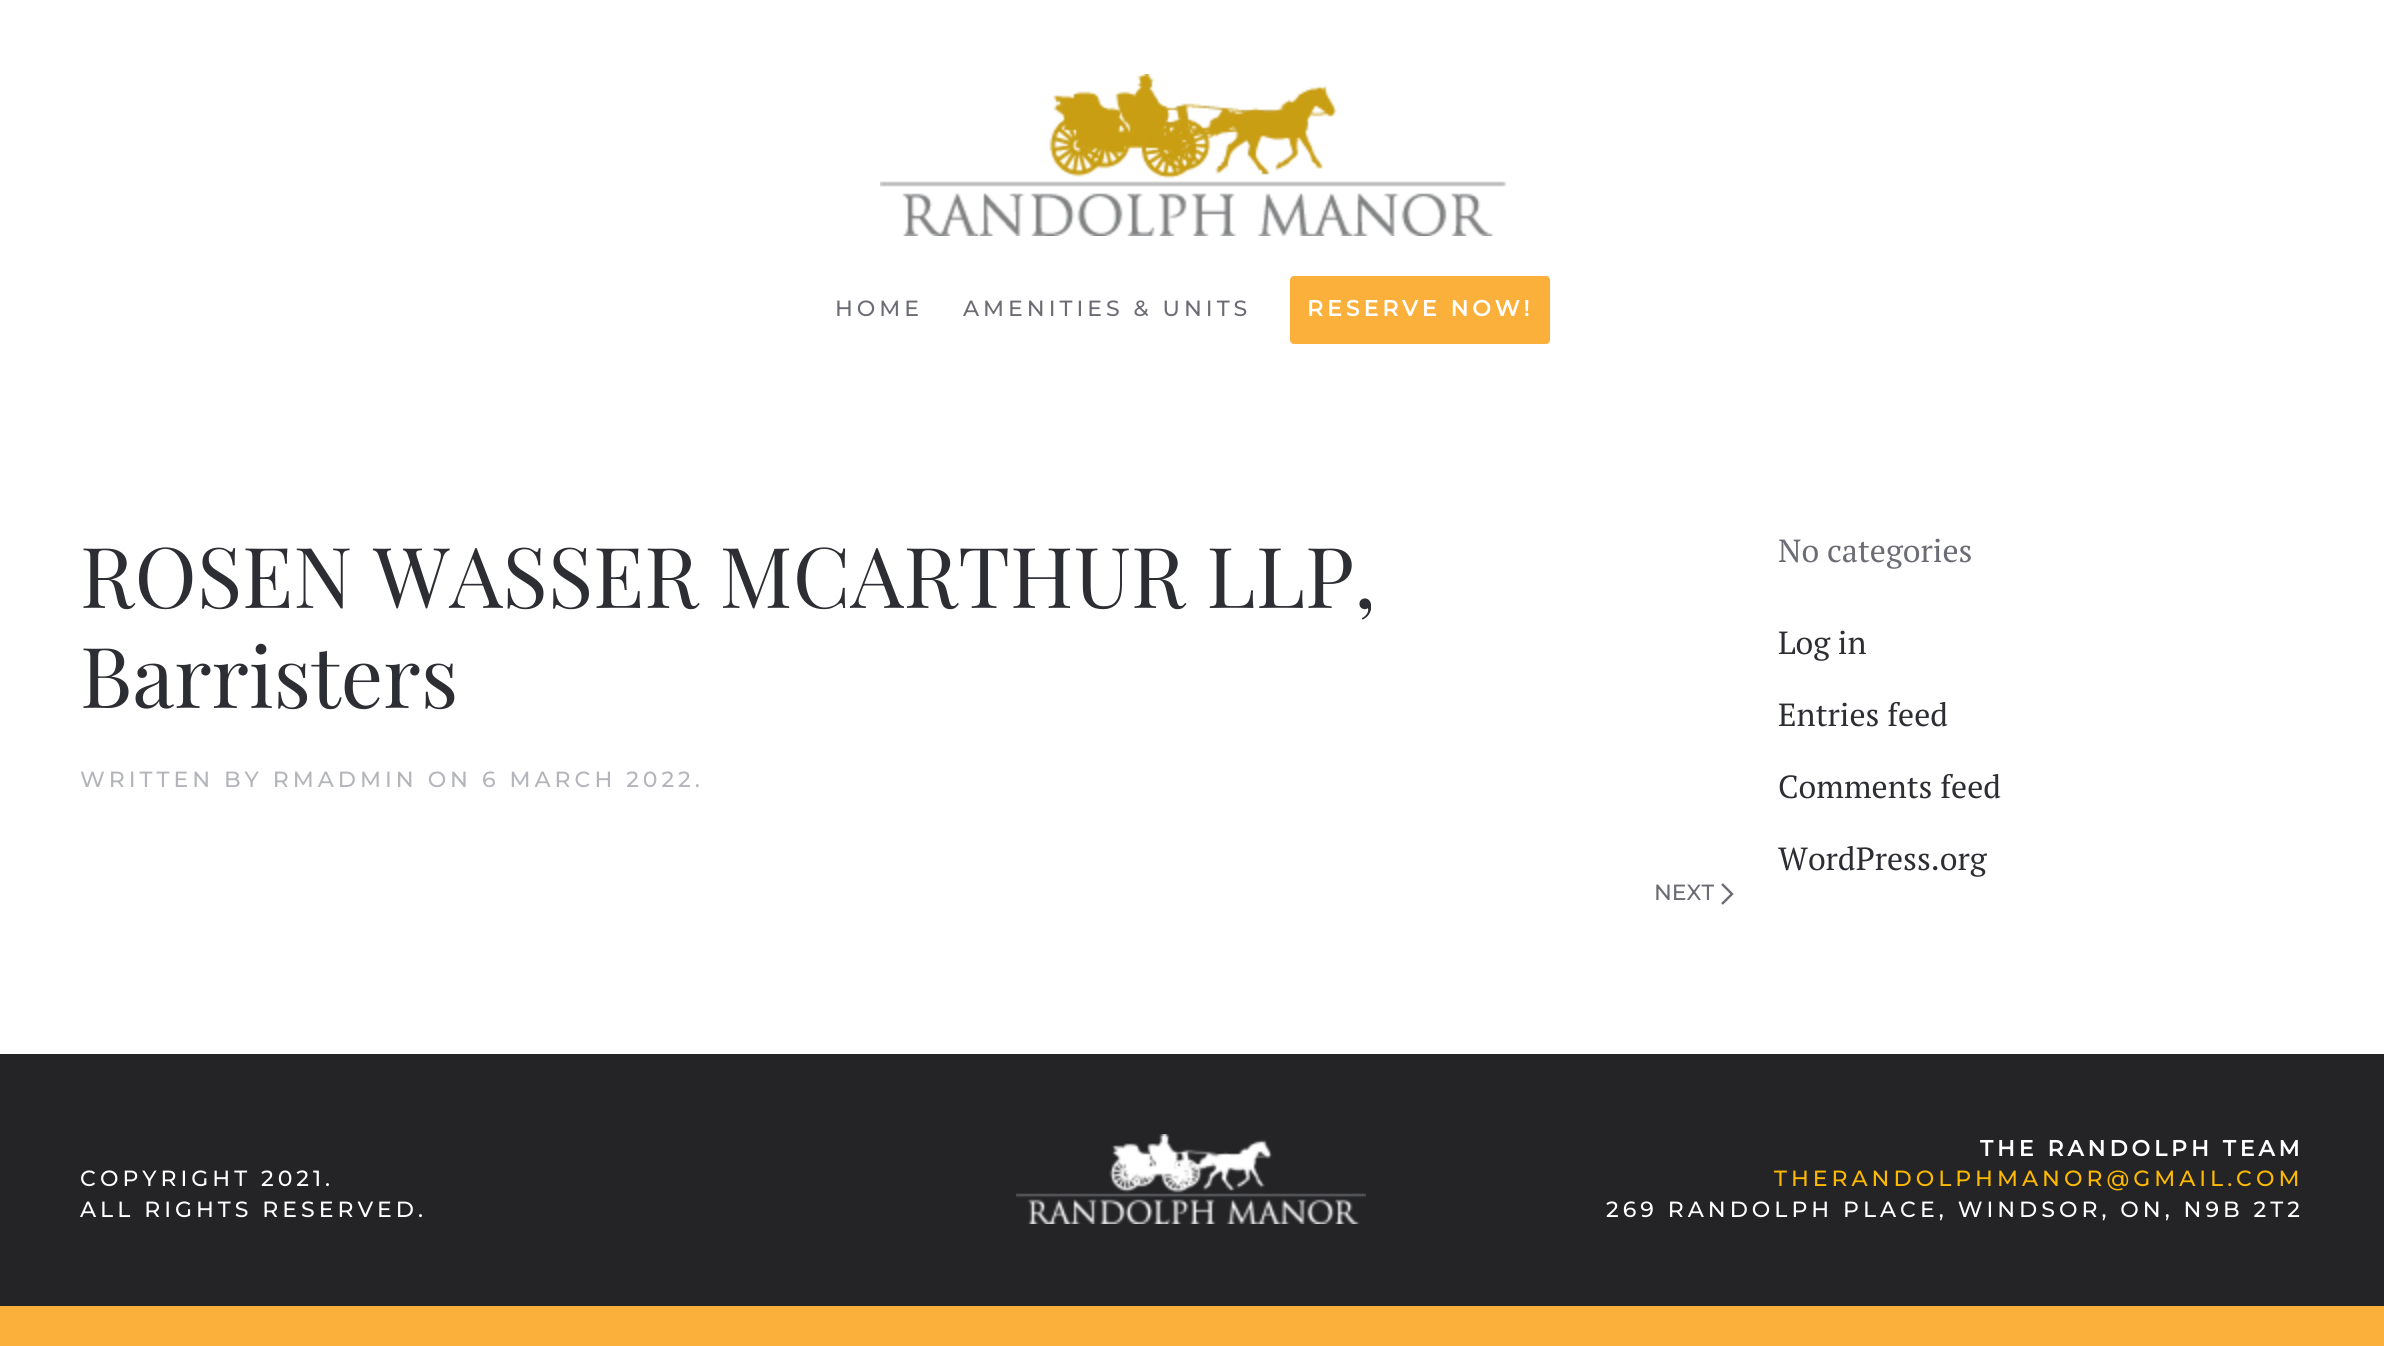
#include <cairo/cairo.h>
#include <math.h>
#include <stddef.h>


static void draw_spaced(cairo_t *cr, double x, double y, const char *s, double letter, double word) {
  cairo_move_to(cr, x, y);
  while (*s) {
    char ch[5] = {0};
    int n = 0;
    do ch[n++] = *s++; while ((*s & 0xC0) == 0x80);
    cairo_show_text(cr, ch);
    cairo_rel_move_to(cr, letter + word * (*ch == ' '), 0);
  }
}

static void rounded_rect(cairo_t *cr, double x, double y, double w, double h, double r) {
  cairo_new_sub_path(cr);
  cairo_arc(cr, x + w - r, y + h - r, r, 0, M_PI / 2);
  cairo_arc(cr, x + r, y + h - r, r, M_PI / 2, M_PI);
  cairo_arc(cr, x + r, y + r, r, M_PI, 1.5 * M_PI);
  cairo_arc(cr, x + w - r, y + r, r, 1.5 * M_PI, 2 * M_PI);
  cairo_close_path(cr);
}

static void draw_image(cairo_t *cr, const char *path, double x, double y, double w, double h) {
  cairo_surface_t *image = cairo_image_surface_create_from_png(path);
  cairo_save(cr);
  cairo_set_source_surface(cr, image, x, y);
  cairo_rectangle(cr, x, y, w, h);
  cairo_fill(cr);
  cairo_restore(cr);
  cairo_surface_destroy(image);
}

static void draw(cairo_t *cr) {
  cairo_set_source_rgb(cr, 1, 1, 1);
  cairo_paint(cr);
  draw_image(cr, "images/1.png", 880, 74, 626, 162);
  cairo_set_source_rgb(cr, 251 / 255.0, 176 / 255.0, 59 / 255.0);
  rounded_rect(cr, 1290, 276, 260, 68, 4);
  cairo_fill(cr);
  cairo_new_path(cr);
  cairo_move_to(cr, 1722, 884);
  cairo_line_to(cr, 1732, 894);
  cairo_line_to(cr, 1722, 904);
  cairo_set_source_rgb(cr, 108 / 255.0, 109 / 255.0, 116 / 255.0);
  cairo_set_line_width(cr, 2.4);
  cairo_stroke(cr);
  cairo_set_source_rgb(cr, 36 / 255.0, 36 / 255.0, 39 / 255.0);
  cairo_rectangle(cr, 0, 1054, 2384, 252);
  cairo_fill(cr);
  draw_image(cr, "images/2.png", 1016, 1134, 350, 90);
  cairo_set_source_rgb(cr, 251 / 255.0, 176 / 255.0, 59 / 255.0);
  cairo_rectangle(cr, 0, 1306, 2384, 40);
  cairo_fill(cr);
  cairo_select_font_face(cr, "Montserrat Thin", CAIRO_FONT_SLANT_NORMAL, CAIRO_FONT_WEIGHT_NORMAL);
  cairo_set_font_size(cr, 22);
  cairo_set_source_rgb(cr, 108 / 255.0, 109 / 255.0, 116 / 255.0);
  draw_spaced(cr, 835, 316, "HOME", 4, 0);
  draw_spaced(cr, 963, 316, "AMENITIES & UNITS", 4, 0);
  cairo_select_font_face(cr, "Montserrat", CAIRO_FONT_SLANT_NORMAL, CAIRO_FONT_WEIGHT_BOLD);
  cairo_set_source_rgb(cr, 1, 1, 1);
  draw_spaced(cr, 1307, 316, "RESERVE NOW!", 4, 0);
  cairo_select_font_face(cr, "Playfair Display", CAIRO_FONT_SLANT_NORMAL, CAIRO_FONT_WEIGHT_NORMAL);
  cairo_set_font_size(cr, 84);
  cairo_set_source_rgb(cr, 45 / 255.0, 46 / 255.0, 51 / 255.0);
  cairo_move_to(cr, 80, 608);
  cairo_show_text(cr, "ROSEN WASSER MCARTHUR LLP,");
  cairo_move_to(cr, 80, 708);
  cairo_show_text(cr, "Barristers");
  cairo_select_font_face(cr, "Montserrat Thin", CAIRO_FONT_SLANT_NORMAL, CAIRO_FONT_WEIGHT_NORMAL);
  cairo_set_font_size(cr, 22);
  cairo_set_source_rgb(cr, 180 / 255.0, 181 / 255.0, 186 / 255.0);
  draw_spaced(cr, 80, 787, "WRITTEN BY RMADMIN ON 6 MARCH 2022.", 4, 0);
  cairo_set_source_rgb(cr, 108 / 255.0, 109 / 255.0, 116 / 255.0);
  cairo_move_to(cr, 1654, 900);
  cairo_show_text(cr, "NEXT");
  cairo_select_font_face(cr, "PT Serif", CAIRO_FONT_SLANT_NORMAL, CAIRO_FONT_WEIGHT_NORMAL);
  cairo_set_font_size(cr, 32);
  cairo_move_to(cr, 1778, 562);
  cairo_show_text(cr, "No categories");
  cairo_set_source_rgb(cr, 45 / 255.0, 46 / 255.0, 51 / 255.0);
  cairo_move_to(cr, 1778, 654);
  cairo_show_text(cr, "Log in");
  cairo_move_to(cr, 1778, 726);
  cairo_show_text(cr, "Entries feed");
  cairo_move_to(cr, 1778, 798);
  cairo_show_text(cr, "Comments feed");
  cairo_move_to(cr, 1778, 870);
  cairo_show_text(cr, "WordPress.org");
  cairo_select_font_face(cr, "Montserrat Thin", CAIRO_FONT_SLANT_NORMAL, CAIRO_FONT_WEIGHT_NORMAL);
  cairo_set_font_size(cr, 22);
  cairo_set_source_rgb(cr, 1, 1, 1);
  draw_spaced(cr, 80, 1186, "COPYRIGHT 2021.", 4, 0);
  draw_spaced(cr, 80, 1217, "ALL RIGHTS RESERVED.", 4, 0);
  cairo_select_font_face(cr, "Montserrat", CAIRO_FONT_SLANT_NORMAL, CAIRO_FONT_WEIGHT_BOLD);
  draw_spaced(cr, 1980, 1156, "THE RANDOLPH TEAM", 4, 0);
  cairo_select_font_face(cr, "Montserrat Thin", CAIRO_FONT_SLANT_NORMAL, CAIRO_FONT_WEIGHT_NORMAL);
  cairo_set_source_rgb(cr, 252 / 255.0, 185 / 255.0, 0);
  draw_spaced(cr, 1774, 1186, "THERANDOLPHMANOR@GMAIL.COM", 4, 0);
  cairo_set_source_rgb(cr, 1, 1, 1);
  draw_spaced(cr, 1606, 1217, "269 RANDOLPH PLACE, WINDSOR, ON, N9B 2T2", 4, 0);
}

int main(void) {
  cairo_surface_t *surface = cairo_image_surface_create(CAIRO_FORMAT_RGB24, 2384, 1346);
  cairo_t *cr = cairo_create(surface);
  cairo_font_options_t *options = cairo_font_options_create();
  cairo_font_options_set_hint_metrics(options, CAIRO_HINT_METRICS_OFF);
  cairo_font_options_set_hint_style(options, CAIRO_HINT_STYLE_NONE);
  cairo_set_font_options(cr, options);
  cairo_set_miter_limit(cr, 4);
  draw(cr);
  cairo_surface_write_to_png(surface, "out.png");
  cairo_font_options_destroy(options);
  cairo_destroy(cr);
  cairo_surface_destroy(surface);
  return 0;
}
